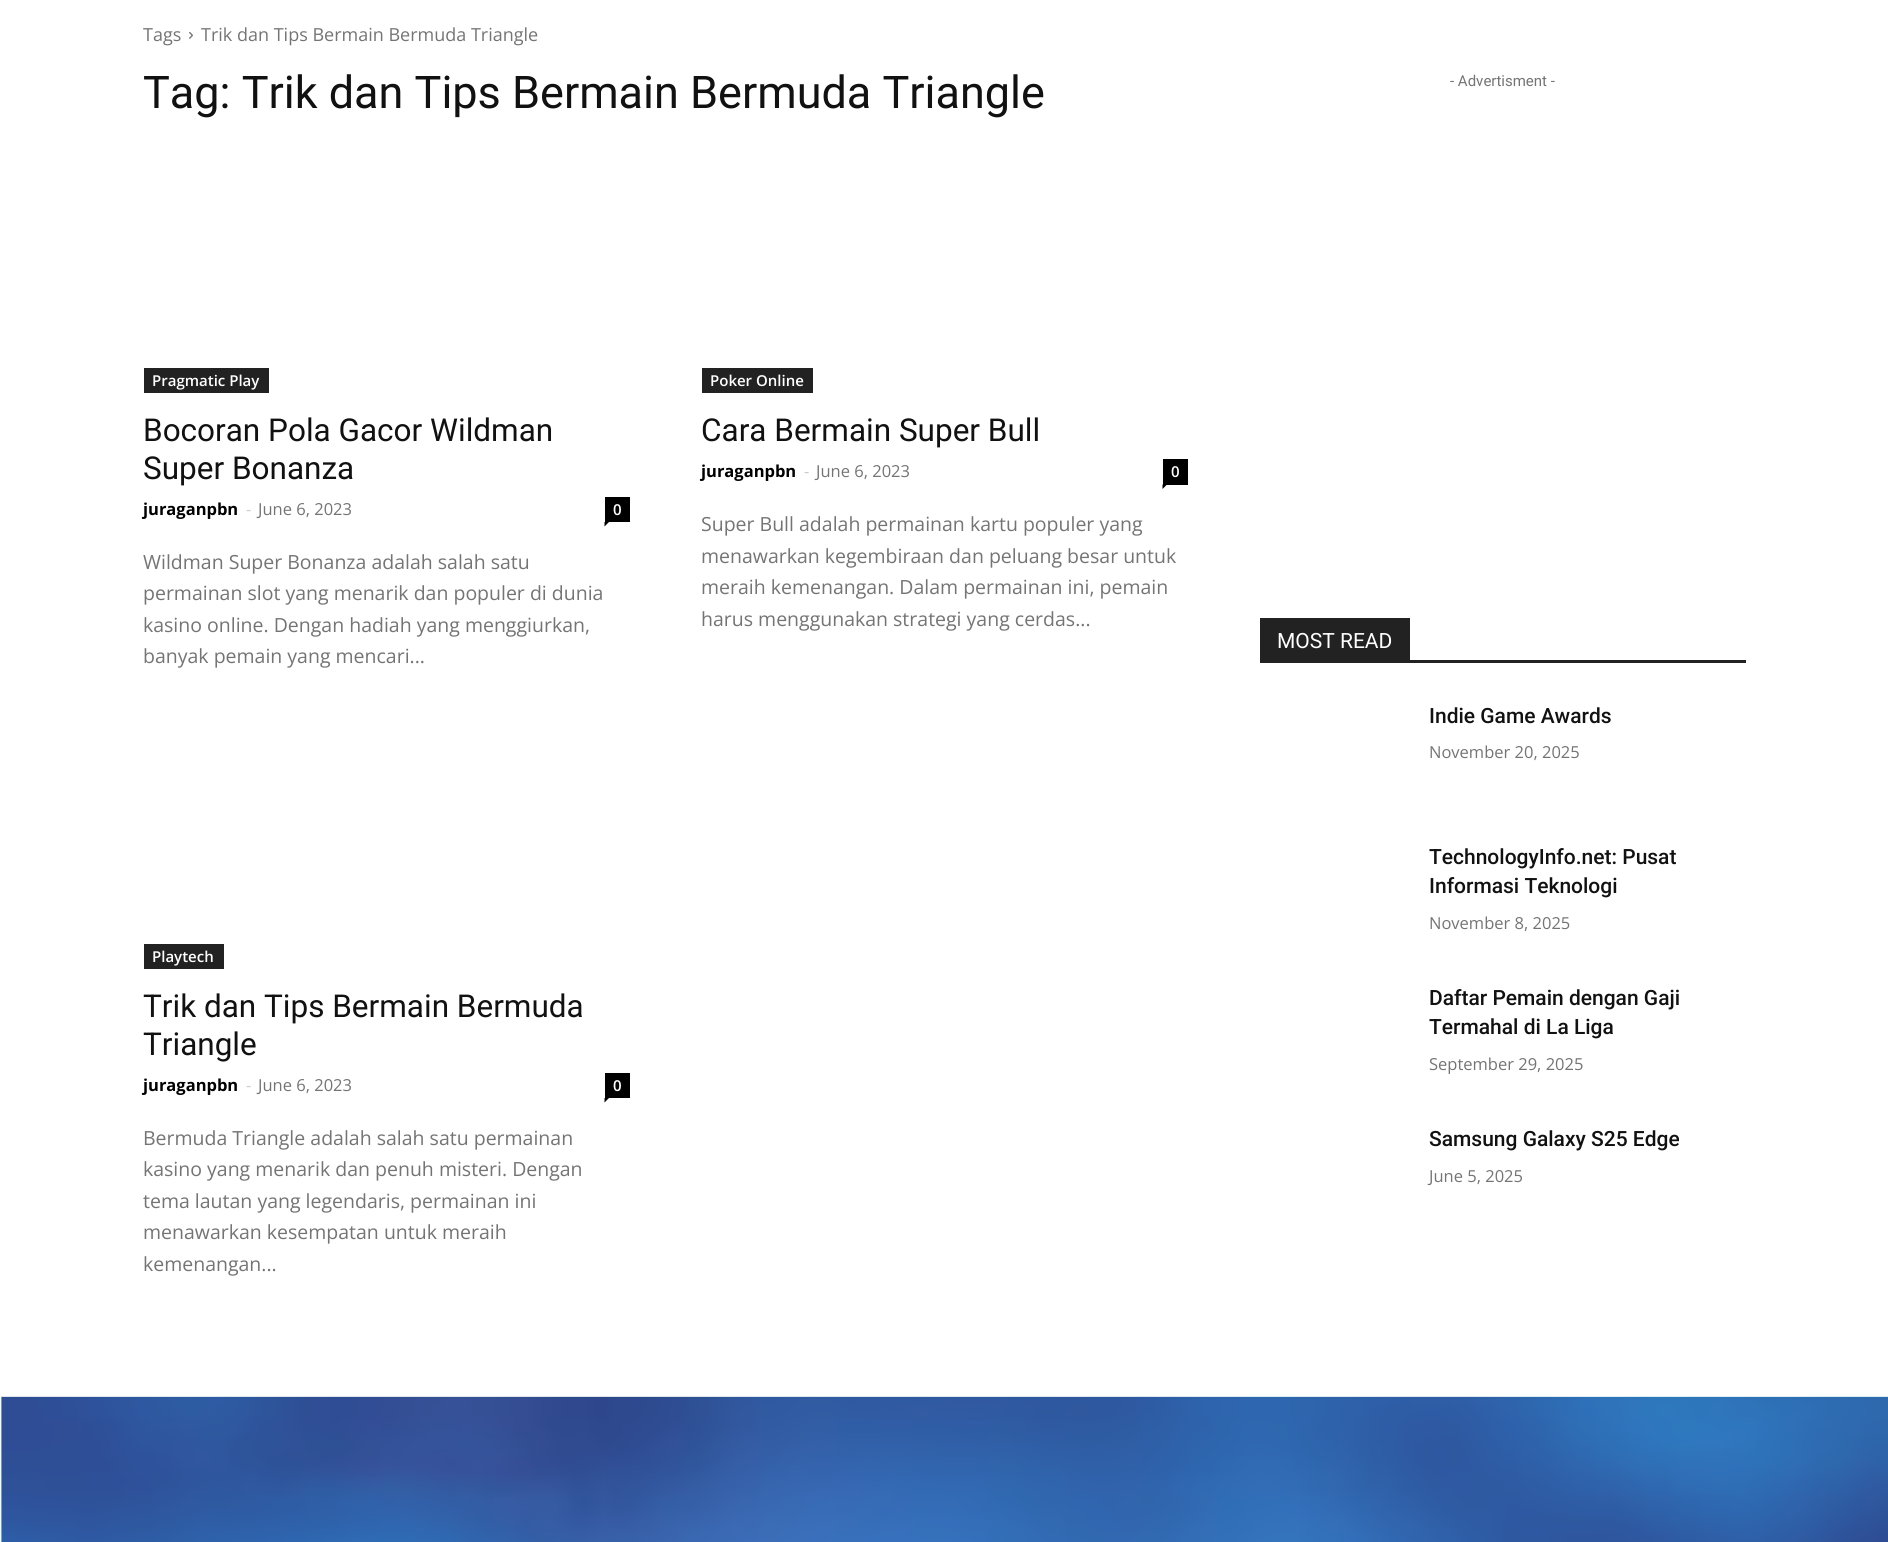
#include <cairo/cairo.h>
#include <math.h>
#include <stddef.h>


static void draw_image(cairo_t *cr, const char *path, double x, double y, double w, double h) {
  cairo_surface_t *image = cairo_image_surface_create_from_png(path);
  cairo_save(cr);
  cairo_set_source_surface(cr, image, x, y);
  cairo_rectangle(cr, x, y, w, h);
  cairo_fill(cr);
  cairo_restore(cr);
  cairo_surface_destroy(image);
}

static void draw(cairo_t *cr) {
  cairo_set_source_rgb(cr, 1, 1, 1);
  cairo_paint(cr);
  draw_image(cr, "images/1.png", 189, 31, 4, 8);
  cairo_set_source_rgb(cr, 34 / 255.0, 34 / 255.0, 34 / 255.0);
  cairo_rectangle(cr, 144, 368, 125, 25);
  cairo_fill(cr);
  cairo_set_source_rgb(cr, 0, 0, 0);
  cairo_rectangle(cr, 605, 497, 25, 25);
  cairo_fill(cr);
  cairo_new_path(cr);
  cairo_move_to(cr, 604.5, 522);
  cairo_line_to(cr, 609, 522);
  cairo_line_to(cr, 604.5, 526.5);
  cairo_close_path(cr);
  cairo_fill(cr);
  cairo_set_source_rgb(cr, 34 / 255.0, 34 / 255.0, 34 / 255.0);
  cairo_rectangle(cr, 702, 368, 111, 25);
  cairo_fill(cr);
  cairo_set_source_rgb(cr, 0, 0, 0);
  cairo_rectangle(cr, 1163, 459, 25, 26);
  cairo_fill(cr);
  cairo_new_path(cr);
  cairo_move_to(cr, 1162.5, 484.5);
  cairo_line_to(cr, 1167, 484.5);
  cairo_line_to(cr, 1162.5, 489);
  cairo_close_path(cr);
  cairo_fill(cr);
  cairo_set_source_rgb(cr, 34 / 255.0, 34 / 255.0, 34 / 255.0);
  cairo_rectangle(cr, 144, 944, 80, 25);
  cairo_fill(cr);
  cairo_set_source_rgb(cr, 0, 0, 0);
  cairo_rectangle(cr, 605, 1073, 25, 25);
  cairo_fill(cr);
  cairo_new_path(cr);
  cairo_move_to(cr, 604.5, 1098);
  cairo_line_to(cr, 609, 1098);
  cairo_line_to(cr, 604.5, 1102.5);
  cairo_close_path(cr);
  cairo_fill(cr);
  cairo_set_source_rgb(cr, 34 / 255.0, 34 / 255.0, 34 / 255.0);
  cairo_rectangle(cr, 1260, 660, 486, 3);
  cairo_fill(cr);
  cairo_rectangle(cr, 1260, 618, 150, 42);
  cairo_fill(cr);
  cairo_set_source_rgb(cr, 93 / 255.0, 105 / 255.0, 242 / 255.0);
  cairo_rectangle(cr, 2, 1397, 1886, 145);
  cairo_fill(cr);
  draw_image(cr, "images/2.png", 0, 1396, 1888, 146);
  cairo_select_font_face(cr, "Open Sans", CAIRO_FONT_SLANT_NORMAL, CAIRO_FONT_WEIGHT_NORMAL);
  cairo_set_font_size(cr, 18);
  cairo_set_source_rgb(cr, 116 / 255.0, 116 / 255.0, 116 / 255.0);
  cairo_move_to(cr, 143, 41);
  cairo_show_text(cr, "Tags");
  cairo_move_to(cr, 201, 41);
  cairo_show_text(cr, "Trik dan Tips Bermain Bermuda Triangle");
  cairo_select_font_face(cr, "Roboto", CAIRO_FONT_SLANT_NORMAL, CAIRO_FONT_WEIGHT_NORMAL);
  cairo_set_font_size(cr, 45);
  cairo_set_source_rgb(cr, 17 / 255.0, 17 / 255.0, 17 / 255.0);
  cairo_move_to(cr, 143, 108);
  cairo_show_text(cr, "Tag: Trik dan Tips Bermain Bermuda Triangle");
  cairo_select_font_face(cr, "Open Sans SemiBold", CAIRO_FONT_SLANT_NORMAL, CAIRO_FONT_WEIGHT_NORMAL);
  cairo_set_font_size(cr, 15);
  cairo_set_source_rgb(cr, 1, 1, 1);
  cairo_move_to(cr, 152, 386);
  cairo_show_text(cr, "Pragmatic Play");
  cairo_select_font_face(cr, "Roboto", CAIRO_FONT_SLANT_NORMAL, CAIRO_FONT_WEIGHT_NORMAL);
  cairo_set_font_size(cr, 31.5);
  cairo_set_source_rgb(cr, 17 / 255.0, 17 / 255.0, 17 / 255.0);
  cairo_move_to(cr, 143, 441);
  cairo_show_text(cr, "Bocoran Pola Gacor Wildman");
  cairo_move_to(cr, 143, 479);
  cairo_show_text(cr, "Super Bonanza");
  cairo_select_font_face(cr, "Open Sans", CAIRO_FONT_SLANT_NORMAL, CAIRO_FONT_WEIGHT_BOLD);
  cairo_set_font_size(cr, 16.5);
  cairo_set_source_rgb(cr, 0, 0, 0);
  cairo_move_to(cr, 143, 515);
  cairo_show_text(cr, "juraganpbn");
  cairo_select_font_face(cr, "Open Sans", CAIRO_FONT_SLANT_NORMAL, CAIRO_FONT_WEIGHT_NORMAL);
  cairo_set_source_rgb(cr, 204 / 255.0, 204 / 255.0, 204 / 255.0);
  cairo_move_to(cr, 246, 515);
  cairo_show_text(cr, "-");
  cairo_set_source_rgb(cr, 116 / 255.0, 116 / 255.0, 116 / 255.0);
  cairo_move_to(cr, 258, 515);
  cairo_show_text(cr, "June 6, 2023");
  cairo_select_font_face(cr, "Open Sans SemiBold", CAIRO_FONT_SLANT_NORMAL, CAIRO_FONT_WEIGHT_NORMAL);
  cairo_set_font_size(cr, 15);
  cairo_set_source_rgb(cr, 1, 1, 1);
  cairo_move_to(cr, 613, 515);
  cairo_show_text(cr, "0");
  cairo_select_font_face(cr, "Open Sans", CAIRO_FONT_SLANT_NORMAL, CAIRO_FONT_WEIGHT_NORMAL);
  cairo_set_font_size(cr, 19.5);
  cairo_set_source_rgb(cr, 116 / 255.0, 116 / 255.0, 116 / 255.0);
  cairo_move_to(cr, 143, 569);
  cairo_show_text(cr, "Wildman Super Bonanza adalah salah satu");
  cairo_move_to(cr, 143, 600);
  cairo_show_text(cr, "permainan slot yang menarik dan populer di dunia");
  cairo_move_to(cr, 143, 632);
  cairo_show_text(cr, "kasino online. Dengan hadiah yang menggiurkan,");
  cairo_move_to(cr, 143, 663);
  cairo_show_text(cr, "banyak pemain yang mencari...");
  cairo_select_font_face(cr, "Open Sans SemiBold", CAIRO_FONT_SLANT_NORMAL, CAIRO_FONT_WEIGHT_NORMAL);
  cairo_set_font_size(cr, 15);
  cairo_set_source_rgb(cr, 1, 1, 1);
  cairo_move_to(cr, 710, 386);
  cairo_show_text(cr, "Poker Online");
  cairo_select_font_face(cr, "Roboto", CAIRO_FONT_SLANT_NORMAL, CAIRO_FONT_WEIGHT_NORMAL);
  cairo_set_font_size(cr, 31.5);
  cairo_set_source_rgb(cr, 17 / 255.0, 17 / 255.0, 17 / 255.0);
  cairo_move_to(cr, 701, 441);
  cairo_show_text(cr, "Cara Bermain Super Bull");
  cairo_select_font_face(cr, "Open Sans", CAIRO_FONT_SLANT_NORMAL, CAIRO_FONT_WEIGHT_BOLD);
  cairo_set_font_size(cr, 16.5);
  cairo_set_source_rgb(cr, 0, 0, 0);
  cairo_move_to(cr, 701, 477);
  cairo_show_text(cr, "juraganpbn");
  cairo_select_font_face(cr, "Open Sans", CAIRO_FONT_SLANT_NORMAL, CAIRO_FONT_WEIGHT_NORMAL);
  cairo_set_source_rgb(cr, 204 / 255.0, 204 / 255.0, 204 / 255.0);
  cairo_move_to(cr, 804, 477);
  cairo_show_text(cr, "-");
  cairo_set_source_rgb(cr, 116 / 255.0, 116 / 255.0, 116 / 255.0);
  cairo_move_to(cr, 816, 477);
  cairo_show_text(cr, "June 6, 2023");
  cairo_select_font_face(cr, "Open Sans SemiBold", CAIRO_FONT_SLANT_NORMAL, CAIRO_FONT_WEIGHT_NORMAL);
  cairo_set_font_size(cr, 15);
  cairo_set_source_rgb(cr, 1, 1, 1);
  cairo_move_to(cr, 1171, 477);
  cairo_show_text(cr, "0");
  cairo_select_font_face(cr, "Open Sans", CAIRO_FONT_SLANT_NORMAL, CAIRO_FONT_WEIGHT_NORMAL);
  cairo_set_font_size(cr, 19.5);
  cairo_set_source_rgb(cr, 116 / 255.0, 116 / 255.0, 116 / 255.0);
  cairo_move_to(cr, 701, 531);
  cairo_show_text(cr, "Super Bull adalah permainan kartu populer yang");
  cairo_move_to(cr, 701, 563);
  cairo_show_text(cr, "menawarkan kegembiraan dan peluang besar untuk");
  cairo_move_to(cr, 701, 594);
  cairo_show_text(cr, "meraih kemenangan. Dalam permainan ini, pemain");
  cairo_move_to(cr, 701, 626);
  cairo_show_text(cr, "harus menggunakan strategi yang cerdas...");
  cairo_select_font_face(cr, "Open Sans SemiBold", CAIRO_FONT_SLANT_NORMAL, CAIRO_FONT_WEIGHT_NORMAL);
  cairo_set_font_size(cr, 15);
  cairo_set_source_rgb(cr, 1, 1, 1);
  cairo_move_to(cr, 152, 962);
  cairo_show_text(cr, "Playtech");
  cairo_select_font_face(cr, "Roboto", CAIRO_FONT_SLANT_NORMAL, CAIRO_FONT_WEIGHT_NORMAL);
  cairo_set_font_size(cr, 31.5);
  cairo_set_source_rgb(cr, 17 / 255.0, 17 / 255.0, 17 / 255.0);
  cairo_move_to(cr, 143, 1017);
  cairo_show_text(cr, "Trik dan Tips Bermain Bermuda");
  cairo_move_to(cr, 143, 1055);
  cairo_show_text(cr, "Triangle");
  cairo_select_font_face(cr, "Open Sans", CAIRO_FONT_SLANT_NORMAL, CAIRO_FONT_WEIGHT_BOLD);
  cairo_set_font_size(cr, 16.5);
  cairo_set_source_rgb(cr, 0, 0, 0);
  cairo_move_to(cr, 143, 1091);
  cairo_show_text(cr, "juraganpbn");
  cairo_select_font_face(cr, "Open Sans", CAIRO_FONT_SLANT_NORMAL, CAIRO_FONT_WEIGHT_NORMAL);
  cairo_set_source_rgb(cr, 204 / 255.0, 204 / 255.0, 204 / 255.0);
  cairo_move_to(cr, 246, 1091);
  cairo_show_text(cr, "-");
  cairo_set_source_rgb(cr, 116 / 255.0, 116 / 255.0, 116 / 255.0);
  cairo_move_to(cr, 258, 1091);
  cairo_show_text(cr, "June 6, 2023");
  cairo_select_font_face(cr, "Open Sans SemiBold", CAIRO_FONT_SLANT_NORMAL, CAIRO_FONT_WEIGHT_NORMAL);
  cairo_set_font_size(cr, 15);
  cairo_set_source_rgb(cr, 1, 1, 1);
  cairo_move_to(cr, 613, 1091);
  cairo_show_text(cr, "0");
  cairo_select_font_face(cr, "Open Sans", CAIRO_FONT_SLANT_NORMAL, CAIRO_FONT_WEIGHT_NORMAL);
  cairo_set_font_size(cr, 19.5);
  cairo_set_source_rgb(cr, 116 / 255.0, 116 / 255.0, 116 / 255.0);
  cairo_move_to(cr, 143, 1145);
  cairo_show_text(cr, "Bermuda Triangle adalah salah satu permainan");
  cairo_move_to(cr, 143, 1176);
  cairo_show_text(cr, "kasino yang menarik dan penuh misteri. Dengan");
  cairo_move_to(cr, 143, 1208);
  cairo_show_text(cr, "tema lautan yang legendaris, permainan ini");
  cairo_move_to(cr, 143, 1239);
  cairo_show_text(cr, "menawarkan kesempatan untuk meraih");
  cairo_move_to(cr, 143, 1271);
  cairo_show_text(cr, "kemenangan...");
  cairo_select_font_face(cr, "Roboto", CAIRO_FONT_SLANT_NORMAL, CAIRO_FONT_WEIGHT_NORMAL);
  cairo_set_font_size(cr, 15);
  cairo_move_to(cr, 1450, 86);
  cairo_show_text(cr, "- Advertisment -");
  cairo_set_font_size(cr, 21);
  cairo_set_source_rgb(cr, 1, 1, 1);
  cairo_move_to(cr, 1277, 648);
  cairo_show_text(cr, "MOST READ");
  cairo_select_font_face(cr, "Roboto Medium", CAIRO_FONT_SLANT_NORMAL, CAIRO_FONT_WEIGHT_NORMAL);
  cairo_set_source_rgb(cr, 17 / 255.0, 17 / 255.0, 17 / 255.0);
  cairo_move_to(cr, 1429, 723);
  cairo_show_text(cr, "Indie Game Awards");
  cairo_select_font_face(cr, "Open Sans", CAIRO_FONT_SLANT_NORMAL, CAIRO_FONT_WEIGHT_NORMAL);
  cairo_set_font_size(cr, 16.5);
  cairo_set_source_rgb(cr, 116 / 255.0, 116 / 255.0, 116 / 255.0);
  cairo_move_to(cr, 1429, 758);
  cairo_show_text(cr, "November 20, 2025");
  cairo_select_font_face(cr, "Roboto Medium", CAIRO_FONT_SLANT_NORMAL, CAIRO_FONT_WEIGHT_NORMAL);
  cairo_set_font_size(cr, 21);
  cairo_set_source_rgb(cr, 17 / 255.0, 17 / 255.0, 17 / 255.0);
  cairo_move_to(cr, 1429, 864);
  cairo_show_text(cr, "TechnologyInfo.net: Pusat");
  cairo_move_to(cr, 1429, 893);
  cairo_show_text(cr, "Informasi Teknologi");
  cairo_select_font_face(cr, "Open Sans", CAIRO_FONT_SLANT_NORMAL, CAIRO_FONT_WEIGHT_NORMAL);
  cairo_set_font_size(cr, 16.5);
  cairo_set_source_rgb(cr, 116 / 255.0, 116 / 255.0, 116 / 255.0);
  cairo_move_to(cr, 1429, 929);
  cairo_show_text(cr, "November 8, 2025");
  cairo_select_font_face(cr, "Roboto Medium", CAIRO_FONT_SLANT_NORMAL, CAIRO_FONT_WEIGHT_NORMAL);
  cairo_set_font_size(cr, 21);
  cairo_set_source_rgb(cr, 17 / 255.0, 17 / 255.0, 17 / 255.0);
  cairo_move_to(cr, 1429, 1005);
  cairo_show_text(cr, "Daftar Pemain dengan Gaji");
  cairo_move_to(cr, 1429, 1034);
  cairo_show_text(cr, "Termahal di La Liga");
  cairo_select_font_face(cr, "Open Sans", CAIRO_FONT_SLANT_NORMAL, CAIRO_FONT_WEIGHT_NORMAL);
  cairo_set_font_size(cr, 16.5);
  cairo_set_source_rgb(cr, 116 / 255.0, 116 / 255.0, 116 / 255.0);
  cairo_move_to(cr, 1429, 1070);
  cairo_show_text(cr, "September 29, 2025");
  cairo_select_font_face(cr, "Roboto Medium", CAIRO_FONT_SLANT_NORMAL, CAIRO_FONT_WEIGHT_NORMAL);
  cairo_set_font_size(cr, 21);
  cairo_set_source_rgb(cr, 17 / 255.0, 17 / 255.0, 17 / 255.0);
  cairo_move_to(cr, 1429, 1146);
  cairo_show_text(cr, "Samsung Galaxy S25 Edge");
  cairo_select_font_face(cr, "Open Sans", CAIRO_FONT_SLANT_NORMAL, CAIRO_FONT_WEIGHT_NORMAL);
  cairo_set_font_size(cr, 16.5);
  cairo_set_source_rgb(cr, 116 / 255.0, 116 / 255.0, 116 / 255.0);
  cairo_move_to(cr, 1429, 1182);
  cairo_show_text(cr, "June 5, 2025");
}

int main(void) {
  cairo_surface_t *surface = cairo_image_surface_create(CAIRO_FORMAT_RGB24, 1888, 1542);
  cairo_t *cr = cairo_create(surface);
  cairo_font_options_t *options = cairo_font_options_create();
  cairo_font_options_set_hint_metrics(options, CAIRO_HINT_METRICS_OFF);
  cairo_font_options_set_hint_style(options, CAIRO_HINT_STYLE_NONE);
  cairo_set_font_options(cr, options);
  cairo_set_miter_limit(cr, 4);
  draw(cr);
  cairo_surface_write_to_png(surface, "out.png");
  cairo_font_options_destroy(options);
  cairo_destroy(cr);
  cairo_surface_destroy(surface);
  return 0;
}
